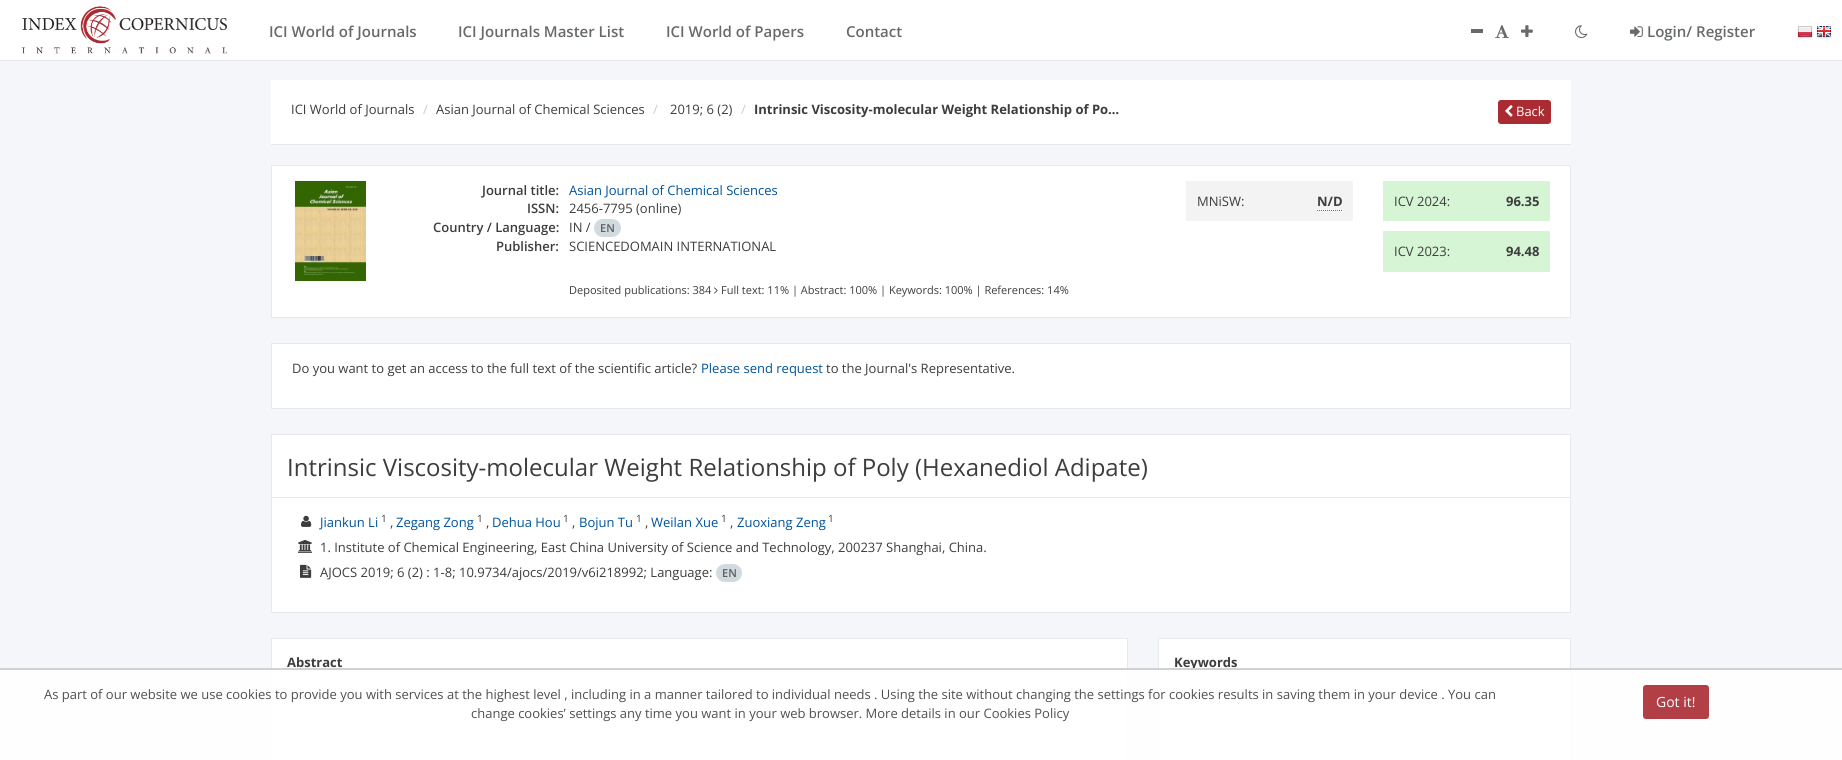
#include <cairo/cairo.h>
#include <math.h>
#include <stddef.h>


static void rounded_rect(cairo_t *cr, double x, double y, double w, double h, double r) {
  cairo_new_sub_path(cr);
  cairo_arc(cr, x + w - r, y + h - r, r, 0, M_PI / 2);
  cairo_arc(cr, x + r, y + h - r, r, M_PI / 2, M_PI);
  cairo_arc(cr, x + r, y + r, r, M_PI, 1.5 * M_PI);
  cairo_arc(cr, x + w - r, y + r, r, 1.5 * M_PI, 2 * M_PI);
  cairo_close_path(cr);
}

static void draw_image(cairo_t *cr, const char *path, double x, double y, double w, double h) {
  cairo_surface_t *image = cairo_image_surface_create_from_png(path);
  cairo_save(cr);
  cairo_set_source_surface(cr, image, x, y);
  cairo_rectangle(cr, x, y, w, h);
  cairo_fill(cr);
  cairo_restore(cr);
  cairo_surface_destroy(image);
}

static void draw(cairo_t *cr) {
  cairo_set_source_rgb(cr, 244 / 255.0, 246 / 255.0, 250 / 255.0);
  cairo_paint(cr);
  cairo_set_source_rgb(cr, 1, 1, 1);
  cairo_rectangle(cr, 0, 0, 1842, 60);
  cairo_fill(cr);
  cairo_set_source_rgb(cr, 231 / 255.0, 234 / 255.0, 236 / 255.0);
  cairo_rectangle(cr, 0, 60, 1842, 1);
  cairo_fill(cr);
  draw_image(cr, "images/1.png", 22, 6, 206, 48);
  cairo_set_source_rgb(cr, 103 / 255.0, 106 / 255.0, 108 / 255.0);
  cairo_rectangle(cr, 1471, 29, 12, 4);
  cairo_fill(cr);
  draw_image(cr, "images/2.png", 1495, 25, 14, 14);
  draw_image(cr, "images/3.png", 1521, 25, 12, 12);
  draw_image(cr, "images/4.png", 1575, 25, 13, 14);
  draw_image(cr, "images/5.png", 1630, 26, 13, 11);
  draw_image(cr, "images/6.png", 1797, 26, 16, 13);
  draw_image(cr, "images/7.png", 1816, 26, 16, 13);
  cairo_set_source_rgb(cr, 1, 1, 1);
  cairo_rectangle(cr, 271, 80, 1300, 64);
  cairo_fill(cr);
  cairo_set_source_rgb(cr, 231 / 255.0, 234 / 255.0, 236 / 255.0);
  cairo_rectangle(cr, 271, 144, 1300, 1);
  cairo_fill(cr);
  cairo_set_source_rgb(cr, 170 / 255.0, 43 / 255.0, 49 / 255.0);
  rounded_rect(cr, 1498.5, 100.5, 52, 23, 2.5);
  cairo_fill_preserve(cr);
  cairo_set_line_width(cr, 1);
  cairo_stroke(cr);
  draw_image(cr, "images/8.png", 1505, 105, 8, 12);
  cairo_set_source_rgb(cr, 1, 1, 1);
  cairo_rectangle(cr, 271.5, 165.5, 1299, 152);
  cairo_fill_preserve(cr);
  cairo_set_source_rgb(cr, 231 / 255.0, 234 / 255.0, 236 / 255.0);
  cairo_stroke(cr);
  draw_image(cr, "images/9.png", 295, 181, 71, 100);
  cairo_set_source_rgb(cr, 209 / 255.0, 218 / 255.0, 222 / 255.0);
  rounded_rect(cr, 594, 219, 27, 18, 9);
  cairo_fill(cr);
  cairo_set_source_rgb(cr, 243 / 255.0, 243 / 255.0, 244 / 255.0);
  cairo_rectangle(cr, 1186, 181, 167, 40);
  cairo_fill(cr);
  cairo_new_path(cr);
  cairo_move_to(cr, 1317, 210.5);
  cairo_line_to(cr, 1342, 210.5);
  cairo_set_source_rgb(cr, 119 / 255.0, 119 / 255.0, 119 / 255.0);
  cairo_set_dash(cr, (double[]){1, 1}, 2, 0);
  cairo_stroke(cr);
  cairo_set_source_rgb(cr, 213 / 255.0, 245 / 255.0, 212 / 255.0);
  cairo_rectangle(cr, 1383, 181, 167, 40);
  cairo_fill(cr);
  cairo_rectangle(cr, 1383, 231, 167, 41);
  cairo_fill(cr);
  draw_image(cr, "images/10.png", 714, 287, 4, 7);
  cairo_set_source_rgb(cr, 1, 1, 1);
  cairo_rectangle(cr, 271.5, 343.5, 1299, 65);
  cairo_fill_preserve(cr);
  cairo_set_source_rgb(cr, 231 / 255.0, 234 / 255.0, 236 / 255.0);
  cairo_set_dash(cr, NULL, 0, 0);
  cairo_stroke(cr);
  cairo_set_source_rgb(cr, 1, 1, 1);
  cairo_rectangle(cr, 272, 435, 1298, 62);
  cairo_fill(cr);
  cairo_set_source_rgb(cr, 231 / 255.0, 234 / 255.0, 236 / 255.0);
  cairo_rectangle(cr, 271, 434, 1300, 1);
  cairo_fill(cr);
  cairo_rectangle(cr, 1570, 434, 1, 63);
  cairo_fill(cr);
  cairo_rectangle(cr, 271, 434, 1, 63);
  cairo_fill(cr);
  cairo_set_source_rgb(cr, 1, 1, 1);
  cairo_rectangle(cr, 271.5, 497.5, 1299, 115);
  cairo_fill_preserve(cr);
  cairo_set_source_rgb(cr, 231 / 255.0, 234 / 255.0, 236 / 255.0);
  cairo_stroke(cr);
  draw_image(cr, "images/11.png", 301, 515, 11, 12);
  draw_image(cr, "images/12.png", 298, 539, 14, 14);
  draw_image(cr, "images/13.png", 300, 564, 12, 14);
  cairo_set_source_rgb(cr, 209 / 255.0, 218 / 255.0, 222 / 255.0);
  rounded_rect(cr, 716, 564, 26, 18, 9);
  cairo_fill(cr);
  cairo_set_source_rgb(cr, 1, 1, 1);
  cairo_rectangle(cr, 272, 639, 855, 47);
  cairo_fill(cr);
  cairo_set_source_rgb(cr, 231 / 255.0, 234 / 255.0, 236 / 255.0);
  cairo_rectangle(cr, 271, 638, 857, 1);
  cairo_fill(cr);
  cairo_rectangle(cr, 1127, 638, 1, 48);
  cairo_fill(cr);
  cairo_rectangle(cr, 271, 638, 1, 48);
  cairo_fill(cr);
  cairo_set_source_rgb(cr, 1, 1, 1);
  cairo_rectangle(cr, 271.5, 686.5, 856, 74);
  cairo_fill_preserve(cr);
  cairo_set_source_rgb(cr, 231 / 255.0, 234 / 255.0, 236 / 255.0);
  cairo_stroke(cr);
  cairo_set_source_rgb(cr, 1, 1, 1);
  cairo_rectangle(cr, 1159, 639, 411, 47);
  cairo_fill(cr);
  cairo_set_source_rgb(cr, 231 / 255.0, 234 / 255.0, 236 / 255.0);
  cairo_rectangle(cr, 1158, 638, 413, 1);
  cairo_fill(cr);
  cairo_rectangle(cr, 1570, 638, 1, 48);
  cairo_fill(cr);
  cairo_rectangle(cr, 1158, 638, 1, 48);
  cairo_fill(cr);
  cairo_set_source_rgb(cr, 1, 1, 1);
  cairo_rectangle(cr, 1158.5, 686.5, 412, 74);
  cairo_fill_preserve(cr);
  cairo_set_source_rgb(cr, 231 / 255.0, 234 / 255.0, 236 / 255.0);
  cairo_stroke(cr);
  cairo_select_font_face(cr, "Open Sans SemiBold", CAIRO_FONT_SLANT_NORMAL, CAIRO_FONT_WEIGHT_NORMAL);
  cairo_set_font_size(cr, 15);
  cairo_set_source_rgb(cr, 103 / 255.0, 106 / 255.0, 108 / 255.0);
  cairo_move_to(cr, 269, 37);
  cairo_show_text(cr, "ICI World of Journals");
  cairo_move_to(cr, 458, 37);
  cairo_show_text(cr, "ICI Journals Master List");
  cairo_move_to(cr, 666, 37);
  cairo_show_text(cr, "ICI World of Papers");
  cairo_move_to(cr, 846, 37);
  cairo_show_text(cr, "Contact");
  cairo_move_to(cr, 1647, 37);
  cairo_show_text(cr, "Login/ Register");
  cairo_select_font_face(cr, "Open Sans", CAIRO_FONT_SLANT_NORMAL, CAIRO_FONT_WEIGHT_NORMAL);
  cairo_set_font_size(cr, 13);
  cairo_set_source_rgb(cr, 61 / 255.0, 61 / 255.0, 61 / 255.0);
  cairo_move_to(cr, 291, 114);
  cairo_show_text(cr, "ICI World of Journals");
  cairo_set_source_rgb(cr, 204 / 255.0, 204 / 255.0, 204 / 255.0);
  cairo_move_to(cr, 423, 114);
  cairo_show_text(cr, "/");
  cairo_set_source_rgb(cr, 61 / 255.0, 61 / 255.0, 61 / 255.0);
  cairo_move_to(cr, 436, 114);
  cairo_show_text(cr, "Asian Journal of Chemical Sciences");
  cairo_set_source_rgb(cr, 204 / 255.0, 204 / 255.0, 204 / 255.0);
  cairo_move_to(cr, 653, 114);
  cairo_show_text(cr, "/");
  cairo_set_source_rgb(cr, 61 / 255.0, 61 / 255.0, 61 / 255.0);
  cairo_move_to(cr, 670, 114);
  cairo_show_text(cr, "2019; 6 (2)");
  cairo_set_source_rgb(cr, 204 / 255.0, 204 / 255.0, 204 / 255.0);
  cairo_move_to(cr, 741, 114);
  cairo_show_text(cr, "/");
  cairo_select_font_face(cr, "Open Sans", CAIRO_FONT_SLANT_NORMAL, CAIRO_FONT_WEIGHT_BOLD);
  cairo_set_source_rgb(cr, 61 / 255.0, 61 / 255.0, 61 / 255.0);
  cairo_move_to(cr, 754, 114);
  cairo_show_text(cr, "Intrinsic Viscosity-molecular Weight Relationship of Po…");
  cairo_select_font_face(cr, "Open Sans", CAIRO_FONT_SLANT_NORMAL, CAIRO_FONT_WEIGHT_NORMAL);
  cairo_set_source_rgb(cr, 1, 1, 1);
  cairo_move_to(cr, 1516, 116);
  cairo_show_text(cr, "Back");
  cairo_select_font_face(cr, "Open Sans SemiBold", CAIRO_FONT_SLANT_NORMAL, CAIRO_FONT_WEIGHT_NORMAL);
  cairo_set_source_rgb(cr, 61 / 255.0, 61 / 255.0, 61 / 255.0);
  cairo_move_to(cr, 482, 195);
  cairo_show_text(cr, "Journal title:");
  cairo_select_font_face(cr, "Open Sans", CAIRO_FONT_SLANT_NORMAL, CAIRO_FONT_WEIGHT_NORMAL);
  cairo_set_source_rgb(cr, 0, 83 / 255.0, 155 / 255.0);
  cairo_move_to(cr, 569, 195);
  cairo_show_text(cr, "Asian Journal of Chemical Sciences");
  cairo_select_font_face(cr, "Open Sans SemiBold", CAIRO_FONT_SLANT_NORMAL, CAIRO_FONT_WEIGHT_NORMAL);
  cairo_set_source_rgb(cr, 61 / 255.0, 61 / 255.0, 61 / 255.0);
  cairo_move_to(cr, 527, 213);
  cairo_show_text(cr, "ISSN:");
  cairo_select_font_face(cr, "Open Sans", CAIRO_FONT_SLANT_NORMAL, CAIRO_FONT_WEIGHT_NORMAL);
  cairo_move_to(cr, 569, 213);
  cairo_show_text(cr, "2456-7795 (online)");
  cairo_select_font_face(cr, "Open Sans SemiBold", CAIRO_FONT_SLANT_NORMAL, CAIRO_FONT_WEIGHT_NORMAL);
  cairo_move_to(cr, 433, 232);
  cairo_show_text(cr, "Country / Language:");
  cairo_select_font_face(cr, "Open Sans", CAIRO_FONT_SLANT_NORMAL, CAIRO_FONT_WEIGHT_NORMAL);
  cairo_move_to(cr, 569, 232);
  cairo_show_text(cr, "IN /");
  cairo_select_font_face(cr, "Open Sans SemiBold", CAIRO_FONT_SLANT_NORMAL, CAIRO_FONT_WEIGHT_NORMAL);
  cairo_set_font_size(cr, 11);
  cairo_set_source_rgb(cr, 94 / 255.0, 94 / 255.0, 94 / 255.0);
  cairo_move_to(cr, 600, 232);
  cairo_show_text(cr, "EN");
  cairo_set_font_size(cr, 13);
  cairo_set_source_rgb(cr, 61 / 255.0, 61 / 255.0, 61 / 255.0);
  cairo_move_to(cr, 496, 251);
  cairo_show_text(cr, "Publisher:");
  cairo_select_font_face(cr, "Open Sans", CAIRO_FONT_SLANT_NORMAL, CAIRO_FONT_WEIGHT_NORMAL);
  cairo_move_to(cr, 569, 251);
  cairo_show_text(cr, "SCIENCEDOMAIN INTERNATIONAL");
  cairo_move_to(cr, 1197, 206);
  cairo_show_text(cr, "MNiSW:");
  cairo_select_font_face(cr, "Open Sans", CAIRO_FONT_SLANT_NORMAL, CAIRO_FONT_WEIGHT_BOLD);
  cairo_move_to(cr, 1317, 206);
  cairo_show_text(cr, "N/D");
  cairo_select_font_face(cr, "Open Sans", CAIRO_FONT_SLANT_NORMAL, CAIRO_FONT_WEIGHT_NORMAL);
  cairo_move_to(cr, 1394, 206);
  cairo_show_text(cr, "ICV 2024:");
  cairo_select_font_face(cr, "Open Sans", CAIRO_FONT_SLANT_NORMAL, CAIRO_FONT_WEIGHT_BOLD);
  cairo_move_to(cr, 1506, 206);
  cairo_show_text(cr, "96.35");
  cairo_select_font_face(cr, "Open Sans", CAIRO_FONT_SLANT_NORMAL, CAIRO_FONT_WEIGHT_NORMAL);
  cairo_move_to(cr, 1394, 256);
  cairo_show_text(cr, "ICV 2023:");
  cairo_select_font_face(cr, "Open Sans", CAIRO_FONT_SLANT_NORMAL, CAIRO_FONT_WEIGHT_BOLD);
  cairo_move_to(cr, 1506, 256);
  cairo_show_text(cr, "94.48");
  cairo_select_font_face(cr, "Open Sans", CAIRO_FONT_SLANT_NORMAL, CAIRO_FONT_WEIGHT_NORMAL);
  cairo_set_font_size(cr, 11);
  cairo_move_to(cr, 569, 294);
  cairo_show_text(cr, "Deposited publications: 384");
  cairo_move_to(cr, 721, 294);
  cairo_show_text(cr, "Full text: 11% | Abstract: 100% | Keywords: 100% | References: 14%");
  cairo_set_font_size(cr, 13);
  cairo_move_to(cr, 292, 373);
  cairo_show_text(cr, "Do you want to get an access to the full text of the scientific article?");
  cairo_set_source_rgb(cr, 0, 83 / 255.0, 155 / 255.0);
  cairo_move_to(cr, 701, 373);
  cairo_show_text(cr, "Please send request");
  cairo_set_source_rgb(cr, 61 / 255.0, 61 / 255.0, 61 / 255.0);
  cairo_move_to(cr, 826, 373);
  cairo_show_text(cr, "to the Journal's Representative.");
  cairo_set_font_size(cr, 24);
  cairo_move_to(cr, 287, 476);
  cairo_show_text(cr, "Intrinsic Viscosity-molecular Weight Relationship of Poly (Hexanediol Adipate)");
  cairo_set_font_size(cr, 13);
  cairo_set_source_rgb(cr, 0, 83 / 255.0, 155 / 255.0);
  cairo_move_to(cr, 320, 527);
  cairo_show_text(cr, "Jiankun Li");
  cairo_set_font_size(cr, 10);
  cairo_set_source_rgb(cr, 61 / 255.0, 61 / 255.0, 61 / 255.0);
  cairo_move_to(cr, 381, 522);
  cairo_show_text(cr, "1");
  cairo_set_font_size(cr, 13);
  cairo_move_to(cr, 390, 527);
  cairo_show_text(cr, ",");
  cairo_set_source_rgb(cr, 0, 83 / 255.0, 155 / 255.0);
  cairo_move_to(cr, 396, 527);
  cairo_show_text(cr, "Zegang Zong");
  cairo_set_font_size(cr, 10);
  cairo_set_source_rgb(cr, 61 / 255.0, 61 / 255.0, 61 / 255.0);
  cairo_move_to(cr, 477, 522);
  cairo_show_text(cr, "1");
  cairo_set_font_size(cr, 13);
  cairo_move_to(cr, 486, 527);
  cairo_show_text(cr, ",");
  cairo_set_source_rgb(cr, 0, 83 / 255.0, 155 / 255.0);
  cairo_move_to(cr, 492, 527);
  cairo_show_text(cr, "Dehua Hou");
  cairo_set_font_size(cr, 10);
  cairo_set_source_rgb(cr, 61 / 255.0, 61 / 255.0, 61 / 255.0);
  cairo_move_to(cr, 563, 522);
  cairo_show_text(cr, "1");
  cairo_set_font_size(cr, 13);
  cairo_move_to(cr, 572, 527);
  cairo_show_text(cr, ",");
  cairo_set_source_rgb(cr, 0, 83 / 255.0, 155 / 255.0);
  cairo_move_to(cr, 579, 527);
  cairo_show_text(cr, "Bojun Tu");
  cairo_set_font_size(cr, 10);
  cairo_set_source_rgb(cr, 61 / 255.0, 61 / 255.0, 61 / 255.0);
  cairo_move_to(cr, 636, 522);
  cairo_show_text(cr, "1");
  cairo_set_font_size(cr, 13);
  cairo_move_to(cr, 645, 527);
  cairo_show_text(cr, ",");
  cairo_set_source_rgb(cr, 0, 83 / 255.0, 155 / 255.0);
  cairo_move_to(cr, 651, 527);
  cairo_show_text(cr, "Weilan Xue");
  cairo_set_font_size(cr, 10);
  cairo_set_source_rgb(cr, 61 / 255.0, 61 / 255.0, 61 / 255.0);
  cairo_move_to(cr, 721, 522);
  cairo_show_text(cr, "1");
  cairo_set_font_size(cr, 13);
  cairo_move_to(cr, 730, 527);
  cairo_show_text(cr, ",");
  cairo_set_source_rgb(cr, 0, 83 / 255.0, 155 / 255.0);
  cairo_move_to(cr, 737, 527);
  cairo_show_text(cr, "Zuoxiang Zeng");
  cairo_set_font_size(cr, 10);
  cairo_set_source_rgb(cr, 61 / 255.0, 61 / 255.0, 61 / 255.0);
  cairo_move_to(cr, 828, 522);
  cairo_show_text(cr, "1");
  cairo_set_font_size(cr, 13);
  cairo_move_to(cr, 320, 552);
  cairo_show_text(cr, "1. Institute of Chemical Engineering, East China University of Science and Technology, 200237 Shanghai, China.");
  cairo_move_to(cr, 320, 577);
  cairo_show_text(cr, "AJOCS 2019; 6 (2) : 1-8; 10.9734/ajocs/2019/v6i218992; Language:");
  cairo_select_font_face(cr, "Open Sans SemiBold", CAIRO_FONT_SLANT_NORMAL, CAIRO_FONT_WEIGHT_NORMAL);
  cairo_set_font_size(cr, 11);
  cairo_set_source_rgb(cr, 94 / 255.0, 94 / 255.0, 94 / 255.0);
  cairo_move_to(cr, 722, 577);
  cairo_show_text(cr, "EN");
  cairo_select_font_face(cr, "Open Sans", CAIRO_FONT_SLANT_NORMAL, CAIRO_FONT_WEIGHT_BOLD);
  cairo_set_font_size(cr, 13);
  cairo_set_source_rgb(cr, 61 / 255.0, 61 / 255.0, 61 / 255.0);
  cairo_move_to(cr, 287, 667);
  cairo_show_text(cr, "Abstract");
  cairo_move_to(cr, 1174, 667);
  cairo_show_text(cr, "Keywords");
  cairo_set_source_rgba(cr, 1, 1, 1, 0.9);
  cairo_rectangle(cr, 0, 668, 1842, 92);
  cairo_fill(cr);
  cairo_set_source_rgba(cr, 204 / 255.0, 204 / 255.0, 204 / 255.0, 0.9);
  cairo_rectangle(cr, 0, 668, 1842, 2);
  cairo_fill(cr);
  cairo_select_font_face(cr, "Open Sans", CAIRO_FONT_SLANT_NORMAL, CAIRO_FONT_WEIGHT_NORMAL);
  cairo_set_source_rgb(cr, 80 / 255.0, 80 / 255.0, 80 / 255.0);
  cairo_move_to(cr, 44, 699);
  cairo_show_text(cr, "As part of our website we use cookies to provide you with services at the highest level , including in a manner tailored to individual needs . Using the site without changing the settings for cookies results in saving them in your device . You can");
  cairo_move_to(cr, 471, 718);
  cairo_show_text(cr, "change cookies’ settings any time you want in your web browser. More details in our Cookies Policy");
  cairo_set_source_rgb(cr, 177 / 255.0, 63 / 255.0, 69 / 255.0);
  rounded_rect(cr, 1643, 685, 66, 34, 3);
  cairo_fill(cr);
  cairo_set_font_size(cr, 14);
  cairo_set_source_rgb(cr, 1, 1, 1);
  cairo_move_to(cr, 1656, 707);
  cairo_show_text(cr, "Got it!");
}

int main(void) {
  cairo_surface_t *surface = cairo_image_surface_create(CAIRO_FORMAT_RGB24, 1842, 760);
  cairo_t *cr = cairo_create(surface);
  cairo_font_options_t *options = cairo_font_options_create();
  cairo_font_options_set_hint_metrics(options, CAIRO_HINT_METRICS_OFF);
  cairo_font_options_set_hint_style(options, CAIRO_HINT_STYLE_NONE);
  cairo_set_font_options(cr, options);
  cairo_set_miter_limit(cr, 4);
  draw(cr);
  cairo_surface_write_to_png(surface, "out.png");
  cairo_font_options_destroy(options);
  cairo_destroy(cr);
  cairo_surface_destroy(surface);
  return 0;
}
